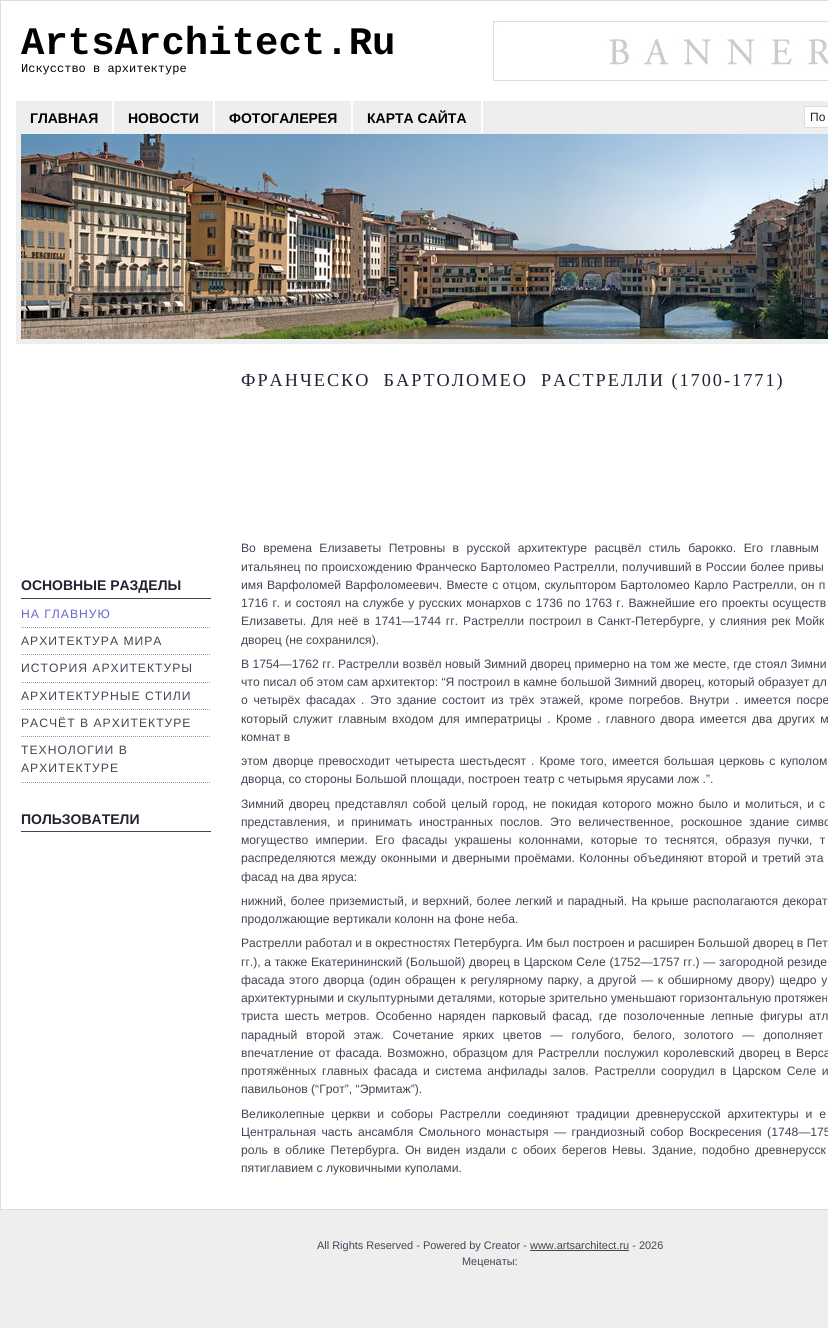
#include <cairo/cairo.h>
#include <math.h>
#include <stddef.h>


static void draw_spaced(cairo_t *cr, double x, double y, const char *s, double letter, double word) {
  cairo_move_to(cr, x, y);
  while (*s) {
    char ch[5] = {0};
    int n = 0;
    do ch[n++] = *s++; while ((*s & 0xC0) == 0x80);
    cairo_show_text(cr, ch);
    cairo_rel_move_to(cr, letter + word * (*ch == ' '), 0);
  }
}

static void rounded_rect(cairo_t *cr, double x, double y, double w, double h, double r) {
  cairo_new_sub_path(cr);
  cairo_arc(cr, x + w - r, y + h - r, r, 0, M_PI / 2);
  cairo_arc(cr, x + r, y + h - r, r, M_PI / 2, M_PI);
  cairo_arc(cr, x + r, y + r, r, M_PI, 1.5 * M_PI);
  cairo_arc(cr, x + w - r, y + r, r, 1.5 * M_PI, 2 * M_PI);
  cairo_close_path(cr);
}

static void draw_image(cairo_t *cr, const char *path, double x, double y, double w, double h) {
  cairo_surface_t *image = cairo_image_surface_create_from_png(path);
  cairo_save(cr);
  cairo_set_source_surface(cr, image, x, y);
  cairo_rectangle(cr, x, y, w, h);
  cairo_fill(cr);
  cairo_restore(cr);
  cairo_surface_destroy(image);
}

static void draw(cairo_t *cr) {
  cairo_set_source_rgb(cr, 238 / 255.0, 238 / 255.0, 238 / 255.0);
  cairo_paint(cr);
  cairo_set_source_rgb(cr, 1, 1, 1);
  cairo_rectangle(cr, 0.5, 0.5, 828, 1209);
  cairo_fill_preserve(cr);
  cairo_set_source_rgb(cr, 221 / 255.0, 221 / 255.0, 221 / 255.0);
  cairo_set_line_width(cr, 1);
  cairo_stroke(cr);
  draw_image(cr, "images/1.png", 493, 21, 335, 60);
  cairo_set_source_rgb(cr, 238 / 255.0, 238 / 255.0, 238 / 255.0);
  cairo_rectangle(cr, 16, 101, 812, 33);
  cairo_fill(cr);
  cairo_rectangle(cr, 16, 339, 812, 5);
  cairo_fill(cr);
  cairo_rectangle(cr, 16, 133, 5, 211);
  cairo_fill(cr);
  draw_image(cr, "images/2.png", 21, 134, 807, 205);
  cairo_set_source_rgb(cr, 1, 1, 1);
  cairo_rectangle(cr, 112, 101, 2, 32);
  cairo_fill(cr);
  cairo_rectangle(cr, 213, 101, 2, 32);
  cairo_fill(cr);
  cairo_rectangle(cr, 351, 101, 2, 32);
  cairo_fill(cr);
  cairo_rectangle(cr, 481, 101, 2, 32);
  cairo_fill(cr);
  rounded_rect(cr, 804.5, 106.5, 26, 21, 1.5);
  cairo_fill_preserve(cr);
  cairo_set_source_rgb(cr, 221 / 255.0, 221 / 255.0, 221 / 255.0);
  cairo_stroke(cr);
  cairo_set_source_rgb(cr, 68 / 255.0, 68 / 255.0, 85 / 255.0);
  cairo_rectangle(cr, 21, 598, 190, 1);
  cairo_fill(cr);
  cairo_new_path(cr);
  cairo_move_to(cr, 21, 627.5);
  cairo_line_to(cr, 211, 627.5);
  cairo_set_source_rgb(cr, 153 / 255.0, 153 / 255.0, 170 / 255.0);
  cairo_set_dash(cr, (double[]){1, 1}, 2, 0);
  cairo_stroke(cr);
  cairo_new_path(cr);
  cairo_move_to(cr, 21, 654.5);
  cairo_line_to(cr, 211, 654.5);
  cairo_stroke(cr);
  cairo_new_path(cr);
  cairo_move_to(cr, 21, 682.5);
  cairo_line_to(cr, 211, 682.5);
  cairo_stroke(cr);
  cairo_new_path(cr);
  cairo_move_to(cr, 21, 709.5);
  cairo_line_to(cr, 211, 709.5);
  cairo_stroke(cr);
  cairo_new_path(cr);
  cairo_move_to(cr, 21, 736.5);
  cairo_line_to(cr, 211, 736.5);
  cairo_stroke(cr);
  cairo_new_path(cr);
  cairo_move_to(cr, 21, 782.5);
  cairo_line_to(cr, 211, 782.5);
  cairo_stroke(cr);
  cairo_set_source_rgb(cr, 68 / 255.0, 68 / 255.0, 85 / 255.0);
  cairo_rectangle(cr, 21, 831, 190, 1);
  cairo_fill(cr);
  cairo_rectangle(cr, 530, 1250, 99, 1);
  cairo_fill(cr);
  cairo_select_font_face(cr, "Liberation Mono", CAIRO_FONT_SLANT_NORMAL, CAIRO_FONT_WEIGHT_BOLD);
  cairo_set_font_size(cr, 39);
  cairo_set_source_rgb(cr, 0, 0, 0);
  cairo_move_to(cr, 21, 54);
  cairo_show_text(cr, "ArtsArchitect.Ru");
  cairo_select_font_face(cr, "Liberation Mono", CAIRO_FONT_SLANT_NORMAL, CAIRO_FONT_WEIGHT_NORMAL);
  cairo_set_font_size(cr, 12);
  cairo_move_to(cr, 21, 72);
  cairo_show_text(cr, "Искусство в архитектуре");
  cairo_select_font_face(cr, "Liberation Sans", CAIRO_FONT_SLANT_NORMAL, CAIRO_FONT_WEIGHT_BOLD);
  cairo_set_font_size(cr, 14);
  cairo_move_to(cr, 30, 123);
  cairo_show_text(cr, "ГЛАВНАЯ");
  cairo_move_to(cr, 128, 123);
  cairo_show_text(cr, "НОВОСТИ");
  cairo_move_to(cr, 229, 123);
  cairo_show_text(cr, "ФОТОГАЛЕРЕЯ");
  cairo_move_to(cr, 367, 123);
  cairo_show_text(cr, "КАРТА САЙТА");
  cairo_select_font_face(cr, "Liberation Sans", CAIRO_FONT_SLANT_NORMAL, CAIRO_FONT_WEIGHT_NORMAL);
  cairo_set_font_size(cr, 12);
  cairo_set_source_rgb(cr, 34 / 255.0, 34 / 255.0, 51 / 255.0);
  cairo_move_to(cr, 810, 121);
  cairo_show_text(cr, "По");
  cairo_select_font_face(cr, "Liberation Sans", CAIRO_FONT_SLANT_NORMAL, CAIRO_FONT_WEIGHT_BOLD);
  cairo_set_font_size(cr, 14);
  cairo_move_to(cr, 21, 590);
  cairo_show_text(cr, "ОСНОВНЫЕ РАЗДЕЛЫ");
  cairo_select_font_face(cr, "Liberation Sans", CAIRO_FONT_SLANT_NORMAL, CAIRO_FONT_WEIGHT_NORMAL);
  cairo_set_font_size(cr, 12.15);
  cairo_set_source_rgb(cr, 102 / 255.0, 102 / 255.0, 204 / 255.0);
  draw_spaced(cr, 21, 618, "НА ГЛАВНУЮ", 1, 0);
  cairo_set_source_rgb(cr, 68 / 255.0, 68 / 255.0, 85 / 255.0);
  draw_spaced(cr, 21, 645, "AРХИТЕКТУРА МИРА", 1, 0);
  draw_spaced(cr, 21, 672, "ИСТОРИЯ АРХИТЕКТУРЫ", 1, 0);
  draw_spaced(cr, 21, 700, "AРХИТЕКТУРНЫЕ СТИЛИ", 1, 0);
  draw_spaced(cr, 21, 727, "РАСЧЁТ В АРХИТЕКТУРЕ", 1, 0);
  draw_spaced(cr, 21, 754, "ТЕХНОЛОГИИ В", 1, 0);
  draw_spaced(cr, 21, 772, "АРХИТЕКТУРЕ", 1, 0);
  cairo_select_font_face(cr, "Liberation Sans", CAIRO_FONT_SLANT_NORMAL, CAIRO_FONT_WEIGHT_BOLD);
  cairo_set_font_size(cr, 14);
  cairo_set_source_rgb(cr, 34 / 255.0, 34 / 255.0, 51 / 255.0);
  cairo_move_to(cr, 21, 824);
  cairo_show_text(cr, "ПОЛЬЗОВАТЕЛИ");
  cairo_select_font_face(cr, "Liberation Serif", CAIRO_FONT_SLANT_NORMAL, CAIRO_FONT_WEIGHT_NORMAL);
  cairo_set_font_size(cr, 18.25);
  draw_spaced(cr, 241, 386, "ФРАНЧЕСКО  БАРТОЛОМЕО  РАСТРЕЛЛИ (1700-1771)", 2, 0);
  cairo_select_font_face(cr, "Liberation Sans", CAIRO_FONT_SLANT_NORMAL, CAIRO_FONT_WEIGHT_NORMAL);
  cairo_set_font_size(cr, 12.15);
  cairo_set_source_rgb(cr, 68 / 255.0, 68 / 255.0, 85 / 255.0);
  draw_spaced(cr, 241, 552, "Во времена Елизаветы Петровны в русской архитектуре расцвёл стиль барокко. Его главным", 0, 4.1);
  draw_spaced(cr, 241, 571, "итальянец по происхождению Франческо Бартоломео Растрелли, получивший в России более привы", 0, 0.5);
  draw_spaced(cr, 241, 589, "имя Варфоломей Варфоломеевич. Вместе с отцом, скульптором Бартоломео Карло Растрелли, он п", 0, 0.8);
  draw_spaced(cr, 241, 607, "1716 г. и состоял на службе у русских монархов с 1736 по 1763 г. Важнейшие его проекты осуществ", 0, 1);
  draw_spaced(cr, 241, 625, "Елизаветы. Для неё в 1741—1744 гг. Растрелли построил в Санкт-Петербурге, у слияния рек Мойк", 0, 1.6);
  cairo_move_to(cr, 241, 644);
  cairo_show_text(cr, "дворец (не сохранился).");
  draw_spaced(cr, 241, 668, "В 1754—1762 гг. Растрелли возвёл новый Зимний дворец примерно на том же месте, где стоял Зимни", 0, 0.1);
  cairo_move_to(cr, 241, 686);
  cairo_show_text(cr, "что писал об этом сам архитектор: “Я построил в камне большой Зимний дворец, который образует дл");
  draw_spaced(cr, 241, 704, "о четырёх фасадах . Это здание состоит из трёх этажей, кроме погребов. Внутри . имеется посре", 0, 2.25);
  draw_spaced(cr, 241, 723, "который служит главным входом для императрицы . Кроме . главного двора имеется два других м", 0, 2);
  cairo_move_to(cr, 241, 741);
  cairo_show_text(cr, "комнат в");
  draw_spaced(cr, 241, 765, "этом дворце превосходит четыреста шестьдесят . Кроме того, имеется большая церковь с куполом", 0, 1.6);
  cairo_move_to(cr, 241, 783);
  cairo_show_text(cr, "дворца, со стороны Большой площади, построен театр с четырьмя ярусами лож .”.");
  draw_spaced(cr, 241, 808, "Зимний дворец представлял собой целый город, не покидая которого можно было и молиться, и с", 0, 1.75);
  draw_spaced(cr, 241, 826, "представления, и принимать иностранных послов. Это величественное, роскошное здание симво", 0, 3.75);
  draw_spaced(cr, 241, 844, "могущество империи. Его фасады украшены колоннами, которые то теснятся, образуя пучки, т", 0, 4);
  draw_spaced(cr, 241, 862, "распределяются между оконными и дверными проёмами. Колонны объединяют второй и третий эта", 0, 1);
  cairo_move_to(cr, 241, 881);
  cairo_show_text(cr, "фасад на два яруса:");
  draw_spaced(cr, 241, 905, "нижний, более приземистый, и верхний, более легкий и парадный. На крыше располагаются декорат", 0, 0.9);
  cairo_move_to(cr, 241, 923);
  cairo_show_text(cr, "продолжающие вертикали колонн на фоне неба.");
  cairo_move_to(cr, 241, 947);
  cairo_show_text(cr, "Растрелли работал и в окрестностях Петербурга. Им был построен и расширен Большой дворец в Пет");
  draw_spaced(cr, 241, 966, "гг.), а также Екатерининский (Большой) дворец в Царском Селе (1752—1757 гг.) — загородной резиде", 0, 0.3);
  draw_spaced(cr, 241, 984, "фасада этого дворца (один обращен к регулярному парку, а другой — к обширному двору) щедро у", 0, 1.3);
  cairo_move_to(cr, 241, 1002);
  cairo_show_text(cr, "архитектурными и скульптурными деталями, которые зрительно уменьшают горизонтальную протяжен");
  draw_spaced(cr, 241, 1020, "триста шесть метров. Особенно наряден парковый фасад, где позолоченные лепные фигуры атл", 0, 2.9);
  draw_spaced(cr, 241, 1039, "парадный второй этаж. Сочетание ярких цветов — голубого, белого, золотого — дополняет", 0, 5.4);
  draw_spaced(cr, 241, 1057, "впечатление от фасада. Возможно, образцом для Растрелли послужил королевский дворец в Верса", 0, 1.5);
  draw_spaced(cr, 241, 1075, "протяжённых главных фасада и система анфилады залов. Растрелли соорудил в Царском Селе и", 0, 2.25);
  cairo_move_to(cr, 241, 1093);
  cairo_show_text(cr, "павильонов (“Грот”, “Эрмитаж”).");
  draw_spaced(cr, 241, 1118, "Великолепные церкви и соборы Растрелли соединяют традиции древнерусской архитектуры и е", 0, 3.5);
  draw_spaced(cr, 241, 1136, "Центральная часть ансамбля Смольного монастыря — грандиозный собор Воскресения (1748—175", 0, 2.1);
  draw_spaced(cr, 241, 1154, "роль в облике Петербурга. Он виден издали с обоих берегов Невы. Здание, подобно древнерусск", 0, 2.1);
  cairo_move_to(cr, 241, 1172);
  cairo_show_text(cr, "пятиглавием с луковичными куполами.");
  cairo_set_font_size(cr, 10.95);
  cairo_move_to(cr, 317, 1249);
  cairo_show_text(cr, "All Rights Reserved - Powered by Creator - www.artsarchitect.ru - 2026");
  cairo_move_to(cr, 462, 1265);
  cairo_show_text(cr, "Меценаты:");
}

int main(void) {
  cairo_surface_t *surface = cairo_image_surface_create(CAIRO_FORMAT_RGB24, 828, 1328);
  cairo_t *cr = cairo_create(surface);
  cairo_font_options_t *options = cairo_font_options_create();
  cairo_font_options_set_hint_metrics(options, CAIRO_HINT_METRICS_OFF);
  cairo_font_options_set_hint_style(options, CAIRO_HINT_STYLE_NONE);
  cairo_set_font_options(cr, options);
  cairo_set_miter_limit(cr, 4);
  draw(cr);
  cairo_surface_write_to_png(surface, "out.png");
  cairo_font_options_destroy(options);
  cairo_destroy(cr);
  cairo_surface_destroy(surface);
  return 0;
}
